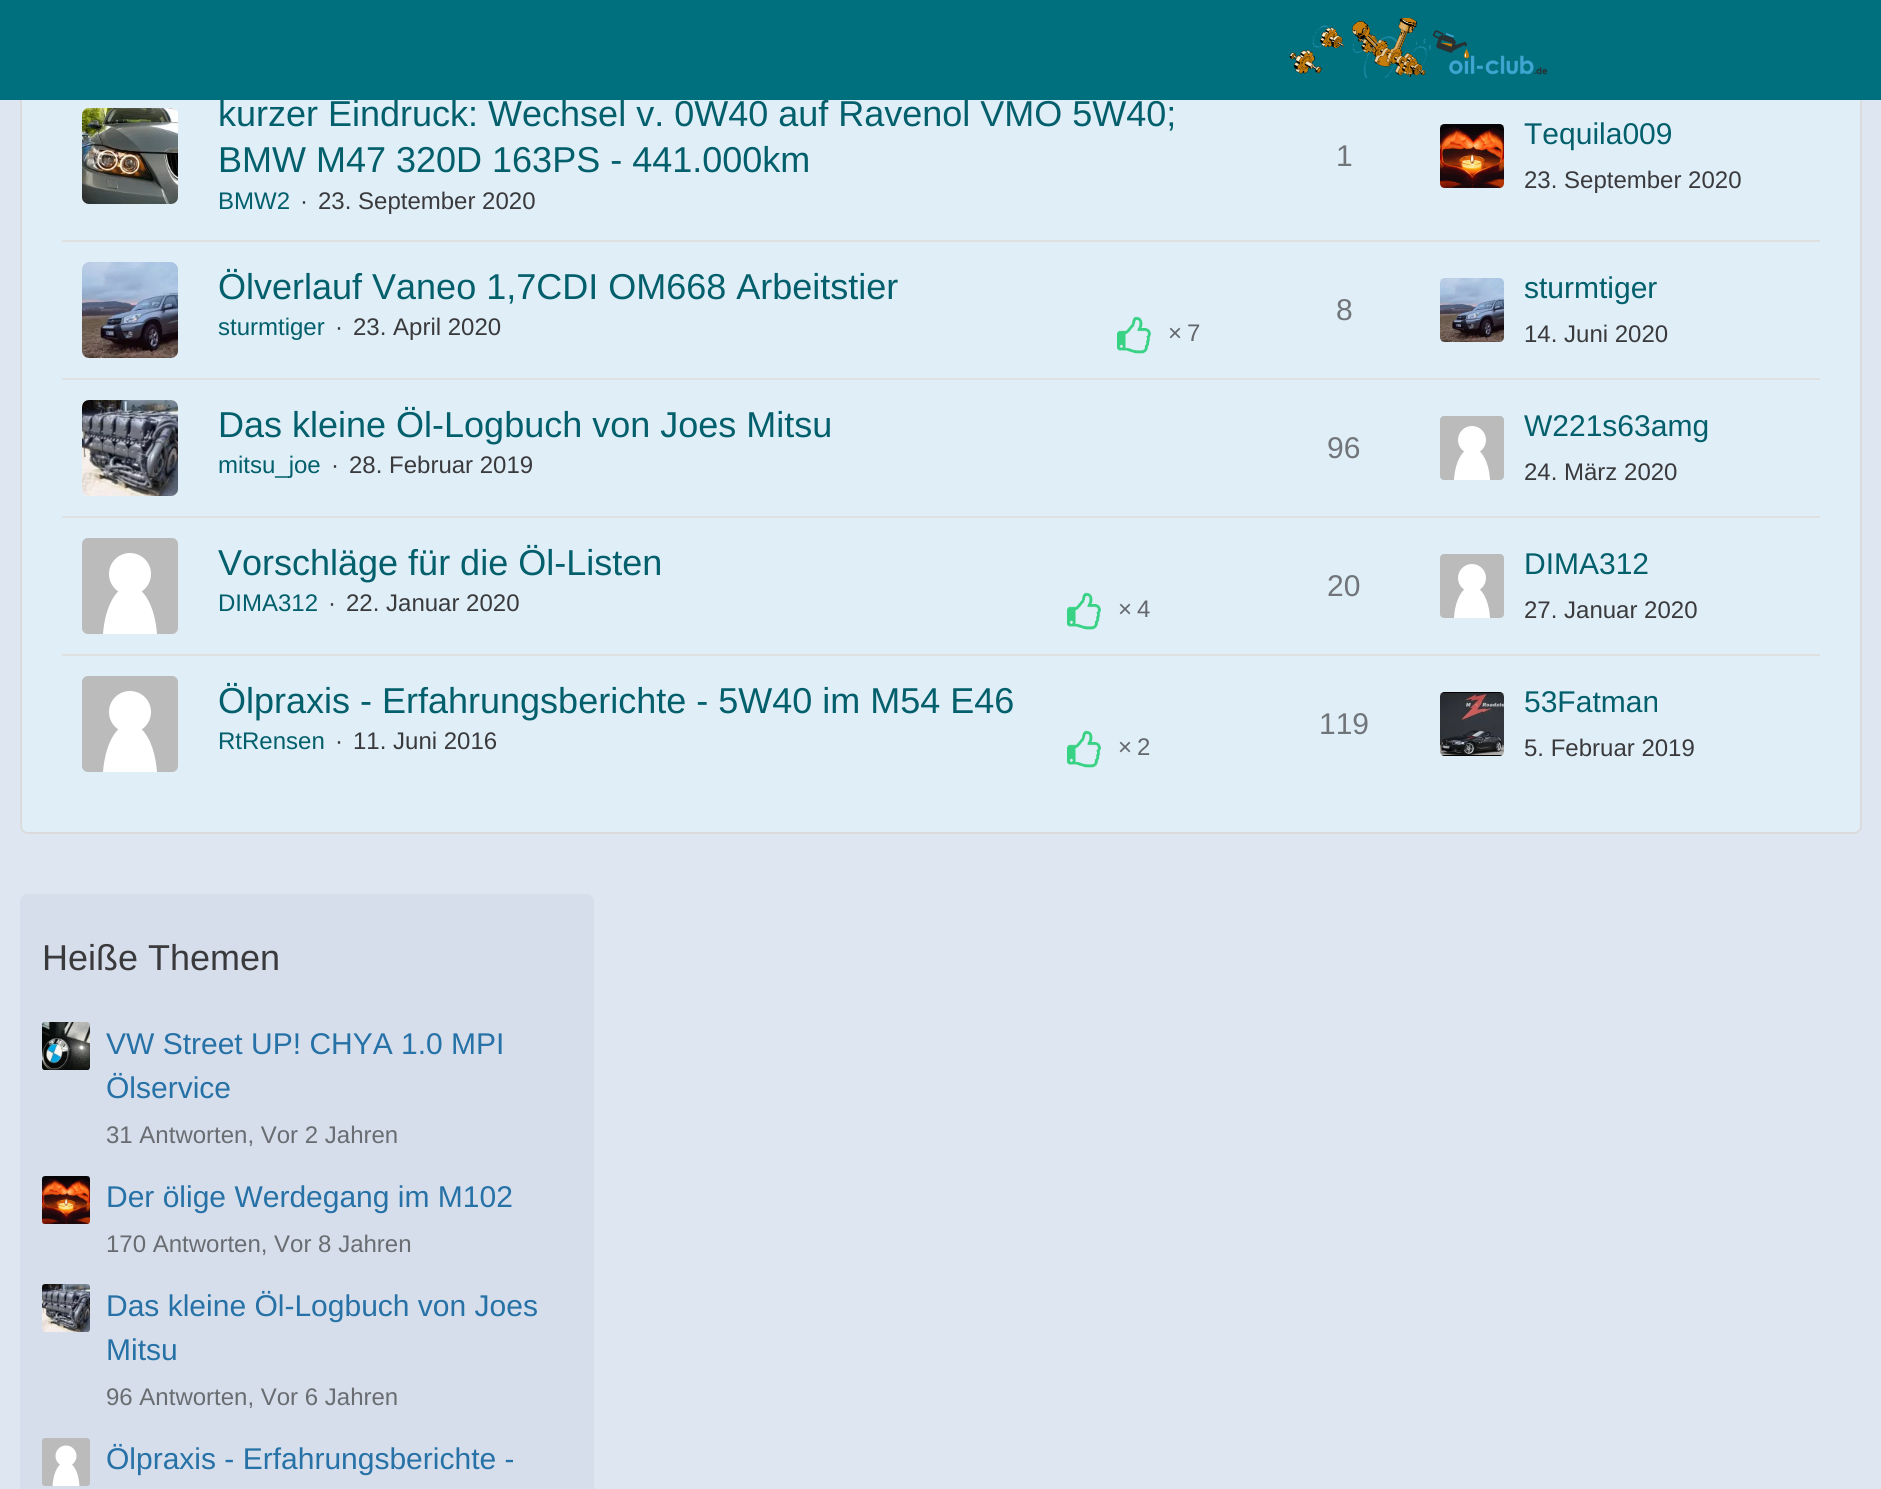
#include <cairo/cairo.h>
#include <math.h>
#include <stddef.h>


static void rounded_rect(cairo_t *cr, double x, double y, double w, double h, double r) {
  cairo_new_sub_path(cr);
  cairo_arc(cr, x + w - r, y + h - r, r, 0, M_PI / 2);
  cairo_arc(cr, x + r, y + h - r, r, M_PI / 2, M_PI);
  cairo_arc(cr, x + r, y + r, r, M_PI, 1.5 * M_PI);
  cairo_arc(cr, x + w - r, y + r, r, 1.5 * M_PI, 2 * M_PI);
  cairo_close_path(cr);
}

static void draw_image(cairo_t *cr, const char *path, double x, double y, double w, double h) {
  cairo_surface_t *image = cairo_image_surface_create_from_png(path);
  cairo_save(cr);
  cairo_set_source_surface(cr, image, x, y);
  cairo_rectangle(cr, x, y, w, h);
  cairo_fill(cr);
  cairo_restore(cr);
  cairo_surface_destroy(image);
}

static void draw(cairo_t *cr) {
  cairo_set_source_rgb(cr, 222 / 255.0, 230 / 255.0, 242 / 255.0);
  cairo_paint(cr);
  cairo_set_source_rgb(cr, 223 / 255.0, 238 / 255.0, 247 / 255.0);
  rounded_rect(cr, 21, -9, 1840, 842, 7);
  cairo_fill_preserve(cr);
  cairo_set_source_rgb(cr, 219 / 255.0, 219 / 255.0, 219 / 255.0);
  cairo_stroke(cr);
  cairo_set_source_rgb(cr, 1, 1, 1);
  rounded_rect(cr, 82, 108, 96, 96, 6);
  cairo_fill(cr);
  draw_image(cr, "images/2.png", 82, 108, 96, 96);
  rounded_rect(cr, 1440, 124, 64, 64, 4);
  cairo_fill(cr);
  draw_image(cr, "images/3.png", 1440, 124, 64, 64);
  cairo_set_source_rgb(cr, 224 / 255.0, 224 / 255.0, 224 / 255.0);
  cairo_rectangle(cr, 62, 240, 1758, 2);
  cairo_fill(cr);
  cairo_set_source_rgb(cr, 1, 1, 1);
  rounded_rect(cr, 82, 262, 96, 96, 6);
  cairo_fill(cr);
  draw_image(cr, "images/4.png", 82, 262, 96, 96);
  draw_image(cr, "images/5.png", 1117, 316, 34, 38);
  rounded_rect(cr, 1440, 278, 64, 64, 4);
  cairo_fill(cr);
  draw_image(cr, "images/6.png", 1440, 278, 64, 64);
  cairo_set_source_rgb(cr, 224 / 255.0, 224 / 255.0, 224 / 255.0);
  cairo_rectangle(cr, 62, 378, 1758, 2);
  cairo_fill(cr);
  cairo_set_source_rgb(cr, 1, 1, 1);
  rounded_rect(cr, 82, 400, 96, 96, 6);
  cairo_fill(cr);
  draw_image(cr, "images/7.png", 82, 400, 96, 96);
  cairo_set_source_rgb(cr, 187 / 255.0, 187 / 255.0, 187 / 255.0);
  rounded_rect(cr, 1440, 416, 64, 64, 4);
  cairo_fill(cr);
  cairo_set_source_rgb(cr, 1, 1, 1);
  cairo_new_path(cr);
  cairo_move_to(cr, 1454, 480);
  cairo_curve_to(cr, 1455, 462, 1462.5, 448, 1472, 448);
  cairo_curve_to(cr, 1481.5, 448, 1489, 462, 1490, 480);
  cairo_fill(cr);
  cairo_arc(cr, 1472, 440, 14, 0, 2 * M_PI);
  cairo_fill(cr);
  cairo_set_source_rgb(cr, 224 / 255.0, 224 / 255.0, 224 / 255.0);
  cairo_rectangle(cr, 62, 516, 1758, 2);
  cairo_fill(cr);
  cairo_set_source_rgb(cr, 187 / 255.0, 187 / 255.0, 187 / 255.0);
  rounded_rect(cr, 82, 538, 96, 96, 6);
  cairo_fill(cr);
  cairo_set_source_rgb(cr, 1, 1, 1);
  cairo_new_path(cr);
  cairo_move_to(cr, 103, 634);
  cairo_curve_to(cr, 105, 607, 116, 586, 130, 586);
  cairo_curve_to(cr, 144, 586, 155, 607, 157, 634);
  cairo_fill(cr);
  cairo_arc(cr, 130, 574, 21, 0, 2 * M_PI);
  cairo_fill(cr);
  draw_image(cr, "images/8.png", 1067, 592, 34, 38);
  cairo_set_source_rgb(cr, 187 / 255.0, 187 / 255.0, 187 / 255.0);
  rounded_rect(cr, 1440, 554, 64, 64, 4);
  cairo_fill(cr);
  cairo_set_source_rgb(cr, 1, 1, 1);
  cairo_new_path(cr);
  cairo_move_to(cr, 1454, 618);
  cairo_curve_to(cr, 1455, 600, 1462.5, 586, 1472, 586);
  cairo_curve_to(cr, 1481.5, 586, 1489, 600, 1490, 618);
  cairo_fill(cr);
  cairo_arc(cr, 1472, 578, 14, 0, 2 * M_PI);
  cairo_fill(cr);
  cairo_set_source_rgb(cr, 224 / 255.0, 224 / 255.0, 224 / 255.0);
  cairo_rectangle(cr, 62, 654, 1758, 2);
  cairo_fill(cr);
  cairo_set_source_rgb(cr, 187 / 255.0, 187 / 255.0, 187 / 255.0);
  rounded_rect(cr, 82, 676, 96, 96, 6);
  cairo_fill(cr);
  cairo_set_source_rgb(cr, 1, 1, 1);
  cairo_new_path(cr);
  cairo_move_to(cr, 103, 772);
  cairo_curve_to(cr, 105, 745, 116, 724, 130, 724);
  cairo_curve_to(cr, 144, 724, 155, 745, 157, 772);
  cairo_fill(cr);
  cairo_arc(cr, 130, 712, 21, 0, 2 * M_PI);
  cairo_fill(cr);
  draw_image(cr, "images/9.png", 1067, 730, 34, 38);
  rounded_rect(cr, 1440, 692, 64, 64, 4);
  cairo_fill(cr);
  draw_image(cr, "images/10.png", 1440, 692, 64, 64);
  cairo_set_source_rgb(cr, 214 / 255.0, 222 / 255.0, 236 / 255.0);
  rounded_rect(cr, 20, 894, 574, 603, 8);
  cairo_fill(cr);
  draw_image(cr, "images/11.png", 42, 1022, 48, 48);
  draw_image(cr, "images/12.png", 42, 1176, 48, 48);
  draw_image(cr, "images/13.png", 42, 1284, 48, 48);
  cairo_set_source_rgb(cr, 187 / 255.0, 187 / 255.0, 187 / 255.0);
  rounded_rect(cr, 42, 1438, 48, 48, 3);
  cairo_fill(cr);
  cairo_set_source_rgb(cr, 1, 1, 1);
  cairo_new_path(cr);
  cairo_move_to(cr, 52.5, 1486);
  cairo_curve_to(cr, 54.5, 1454, 77.5, 1454, 79.5, 1486);
  cairo_fill(cr);
  cairo_arc(cr, 66, 1456, 10.5, 0, 2 * M_PI);
  cairo_fill(cr);
  cairo_select_font_face(cr, "Liberation Sans", CAIRO_FONT_SLANT_NORMAL, CAIRO_FONT_WEIGHT_NORMAL);
  cairo_set_font_size(cr, 36);
  cairo_set_source_rgb(cr, 2 / 255.0, 95 / 255.0, 107 / 255.0);
  cairo_move_to(cr, 218, 126);
  cairo_show_text(cr, "kurzer Eindruck: Wechsel v. 0W40 auf Ravenol VMO 5W40;");
  cairo_set_source_rgb(cr, 0, 111 / 255.0, 126 / 255.0);
  cairo_rectangle(cr, 0, 0, 1881, 100);
  cairo_fill(cr);
  draw_image(cr, "images/1.png", 1289, 18, 259, 60);
  cairo_set_source_rgb(cr, 2 / 255.0, 95 / 255.0, 107 / 255.0);
  cairo_move_to(cr, 218, 172);
  cairo_show_text(cr, "BMW M47 320D 163PS - 441.000km");
  cairo_set_font_size(cr, 24);
  cairo_move_to(cr, 218, 209);
  cairo_show_text(cr, "BMW2");
  cairo_set_source_rgb(cr, 58 / 255.0, 58 / 255.0, 61 / 255.0);
  cairo_move_to(cr, 300, 209);
  cairo_show_text(cr, "·");
  cairo_move_to(cr, 318, 209);
  cairo_show_text(cr, "23. September 2020");
  cairo_set_font_size(cr, 30);
  cairo_set_source_rgb(cr, 113 / 255.0, 117 / 255.0, 122 / 255.0);
  cairo_move_to(cr, 1336, 166);
  cairo_show_text(cr, "1");
  cairo_set_source_rgb(cr, 2 / 255.0, 95 / 255.0, 107 / 255.0);
  cairo_move_to(cr, 1524, 144);
  cairo_show_text(cr, "Tequila009");
  cairo_set_font_size(cr, 24);
  cairo_set_source_rgb(cr, 58 / 255.0, 58 / 255.0, 61 / 255.0);
  cairo_move_to(cr, 1524, 188);
  cairo_show_text(cr, "23. September 2020");
  cairo_set_font_size(cr, 36);
  cairo_set_source_rgb(cr, 2 / 255.0, 95 / 255.0, 107 / 255.0);
  cairo_move_to(cr, 218, 299);
  cairo_show_text(cr, "Ölverlauf Vaneo 1,7CDI OM668 Arbeitstier");
  cairo_set_font_size(cr, 24);
  cairo_move_to(cr, 218, 335);
  cairo_show_text(cr, "sturmtiger");
  cairo_set_source_rgb(cr, 58 / 255.0, 58 / 255.0, 61 / 255.0);
  cairo_move_to(cr, 335, 335);
  cairo_show_text(cr, "·");
  cairo_move_to(cr, 353, 335);
  cairo_show_text(cr, "23. April 2020");
  cairo_set_source_rgb(cr, 99 / 255.0, 103 / 255.0, 108 / 255.0);
  cairo_move_to(cr, 1168, 341);
  cairo_show_text(cr, "×");
  cairo_move_to(cr, 1187, 341);
  cairo_show_text(cr, "7");
  cairo_set_font_size(cr, 30);
  cairo_set_source_rgb(cr, 113 / 255.0, 117 / 255.0, 122 / 255.0);
  cairo_move_to(cr, 1336, 320);
  cairo_show_text(cr, "8");
  cairo_set_source_rgb(cr, 2 / 255.0, 95 / 255.0, 107 / 255.0);
  cairo_move_to(cr, 1524, 298);
  cairo_show_text(cr, "sturmtiger");
  cairo_set_font_size(cr, 24);
  cairo_set_source_rgb(cr, 58 / 255.0, 58 / 255.0, 61 / 255.0);
  cairo_move_to(cr, 1524, 342);
  cairo_show_text(cr, "14. Juni 2020");
  cairo_set_font_size(cr, 36);
  cairo_set_source_rgb(cr, 2 / 255.0, 95 / 255.0, 107 / 255.0);
  cairo_move_to(cr, 218, 437);
  cairo_show_text(cr, "Das kleine Öl-Logbuch von Joes Mitsu");
  cairo_set_font_size(cr, 24);
  cairo_move_to(cr, 218, 473);
  cairo_show_text(cr, "mitsu_joe");
  cairo_set_source_rgb(cr, 58 / 255.0, 58 / 255.0, 61 / 255.0);
  cairo_move_to(cr, 331, 473);
  cairo_show_text(cr, "·");
  cairo_move_to(cr, 349, 473);
  cairo_show_text(cr, "28. Februar 2019");
  cairo_set_font_size(cr, 30);
  cairo_set_source_rgb(cr, 113 / 255.0, 117 / 255.0, 122 / 255.0);
  cairo_move_to(cr, 1327, 458);
  cairo_show_text(cr, "96");
  cairo_set_source_rgb(cr, 2 / 255.0, 95 / 255.0, 107 / 255.0);
  cairo_move_to(cr, 1524, 436);
  cairo_show_text(cr, "W221s63amg");
  cairo_set_font_size(cr, 24);
  cairo_set_source_rgb(cr, 58 / 255.0, 58 / 255.0, 61 / 255.0);
  cairo_move_to(cr, 1524, 480);
  cairo_show_text(cr, "24. März 2020");
  cairo_set_font_size(cr, 36);
  cairo_set_source_rgb(cr, 2 / 255.0, 95 / 255.0, 107 / 255.0);
  cairo_move_to(cr, 218, 575);
  cairo_show_text(cr, "Vorschläge für die Öl-Listen");
  cairo_set_font_size(cr, 24);
  cairo_move_to(cr, 218, 611);
  cairo_show_text(cr, "DIMA312");
  cairo_set_source_rgb(cr, 58 / 255.0, 58 / 255.0, 61 / 255.0);
  cairo_move_to(cr, 328, 611);
  cairo_show_text(cr, "·");
  cairo_move_to(cr, 346, 611);
  cairo_show_text(cr, "22. Januar 2020");
  cairo_set_source_rgb(cr, 99 / 255.0, 103 / 255.0, 108 / 255.0);
  cairo_move_to(cr, 1118, 617);
  cairo_show_text(cr, "×");
  cairo_move_to(cr, 1137, 617);
  cairo_show_text(cr, "4");
  cairo_set_font_size(cr, 30);
  cairo_set_source_rgb(cr, 113 / 255.0, 117 / 255.0, 122 / 255.0);
  cairo_move_to(cr, 1327, 596);
  cairo_show_text(cr, "20");
  cairo_set_source_rgb(cr, 2 / 255.0, 95 / 255.0, 107 / 255.0);
  cairo_move_to(cr, 1524, 574);
  cairo_show_text(cr, "DIMA312");
  cairo_set_font_size(cr, 24);
  cairo_set_source_rgb(cr, 58 / 255.0, 58 / 255.0, 61 / 255.0);
  cairo_move_to(cr, 1524, 618);
  cairo_show_text(cr, "27. Januar 2020");
  cairo_set_font_size(cr, 36);
  cairo_set_source_rgb(cr, 2 / 255.0, 95 / 255.0, 107 / 255.0);
  cairo_move_to(cr, 218, 713);
  cairo_show_text(cr, "Ölpraxis - Erfahrungsberichte - 5W40 im M54 E46");
  cairo_set_font_size(cr, 24);
  cairo_move_to(cr, 218, 749);
  cairo_show_text(cr, "RtRensen");
  cairo_set_source_rgb(cr, 58 / 255.0, 58 / 255.0, 61 / 255.0);
  cairo_move_to(cr, 335, 749);
  cairo_show_text(cr, "·");
  cairo_move_to(cr, 353, 749);
  cairo_show_text(cr, "11. Juni 2016");
  cairo_set_source_rgb(cr, 99 / 255.0, 103 / 255.0, 108 / 255.0);
  cairo_move_to(cr, 1118, 755);
  cairo_show_text(cr, "×");
  cairo_move_to(cr, 1137, 755);
  cairo_show_text(cr, "2");
  cairo_set_font_size(cr, 30);
  cairo_set_source_rgb(cr, 113 / 255.0, 117 / 255.0, 122 / 255.0);
  cairo_move_to(cr, 1319, 734);
  cairo_show_text(cr, "119");
  cairo_set_source_rgb(cr, 2 / 255.0, 95 / 255.0, 107 / 255.0);
  cairo_move_to(cr, 1524, 712);
  cairo_show_text(cr, "53Fatman");
  cairo_set_font_size(cr, 24);
  cairo_set_source_rgb(cr, 58 / 255.0, 58 / 255.0, 61 / 255.0);
  cairo_move_to(cr, 1524, 756);
  cairo_show_text(cr, "5. Februar 2019");
  cairo_set_font_size(cr, 36);
  cairo_move_to(cr, 42, 970);
  cairo_show_text(cr, "Heiße Themen");
  cairo_set_font_size(cr, 30);
  cairo_set_source_rgb(cr, 38 / 255.0, 113 / 255.0, 166 / 255.0);
  cairo_move_to(cr, 106, 1054);
  cairo_show_text(cr, "VW Street UP! CHYA 1.0 MPI");
  cairo_move_to(cr, 106, 1098);
  cairo_show_text(cr, "Ölservice");
  cairo_set_font_size(cr, 24);
  cairo_set_source_rgb(cr, 105 / 255.0, 109 / 255.0, 114 / 255.0);
  cairo_move_to(cr, 106, 1143);
  cairo_show_text(cr, "31 Antworten, Vor 2 Jahren");
  cairo_set_font_size(cr, 30);
  cairo_set_source_rgb(cr, 38 / 255.0, 113 / 255.0, 166 / 255.0);
  cairo_move_to(cr, 106, 1207);
  cairo_show_text(cr, "Der ölige Werdegang im M102");
  cairo_set_font_size(cr, 24);
  cairo_set_source_rgb(cr, 105 / 255.0, 109 / 255.0, 114 / 255.0);
  cairo_move_to(cr, 106, 1252);
  cairo_show_text(cr, "170 Antworten, Vor 8 Jahren");
  cairo_set_font_size(cr, 30);
  cairo_set_source_rgb(cr, 38 / 255.0, 113 / 255.0, 166 / 255.0);
  cairo_move_to(cr, 106, 1316);
  cairo_show_text(cr, "Das kleine Öl-Logbuch von Joes");
  cairo_move_to(cr, 106, 1360);
  cairo_show_text(cr, "Mitsu");
  cairo_set_font_size(cr, 24);
  cairo_set_source_rgb(cr, 105 / 255.0, 109 / 255.0, 114 / 255.0);
  cairo_move_to(cr, 106, 1405);
  cairo_show_text(cr, "96 Antworten, Vor 6 Jahren");
  cairo_set_font_size(cr, 30);
  cairo_set_source_rgb(cr, 38 / 255.0, 113 / 255.0, 166 / 255.0);
  cairo_move_to(cr, 106, 1469);
  cairo_show_text(cr, "Ölpraxis - Erfahrungsberichte -");
}

int main(void) {
  cairo_surface_t *surface = cairo_image_surface_create(CAIRO_FORMAT_RGB24, 1881, 1489);
  cairo_t *cr = cairo_create(surface);
  cairo_font_options_t *options = cairo_font_options_create();
  cairo_font_options_set_hint_metrics(options, CAIRO_HINT_METRICS_OFF);
  cairo_font_options_set_hint_style(options, CAIRO_HINT_STYLE_NONE);
  cairo_set_font_options(cr, options);
  cairo_set_miter_limit(cr, 4);
  draw(cr);
  cairo_surface_write_to_png(surface, "out.png");
  cairo_font_options_destroy(options);
  cairo_destroy(cr);
  cairo_surface_destroy(surface);
  return 0;
}
